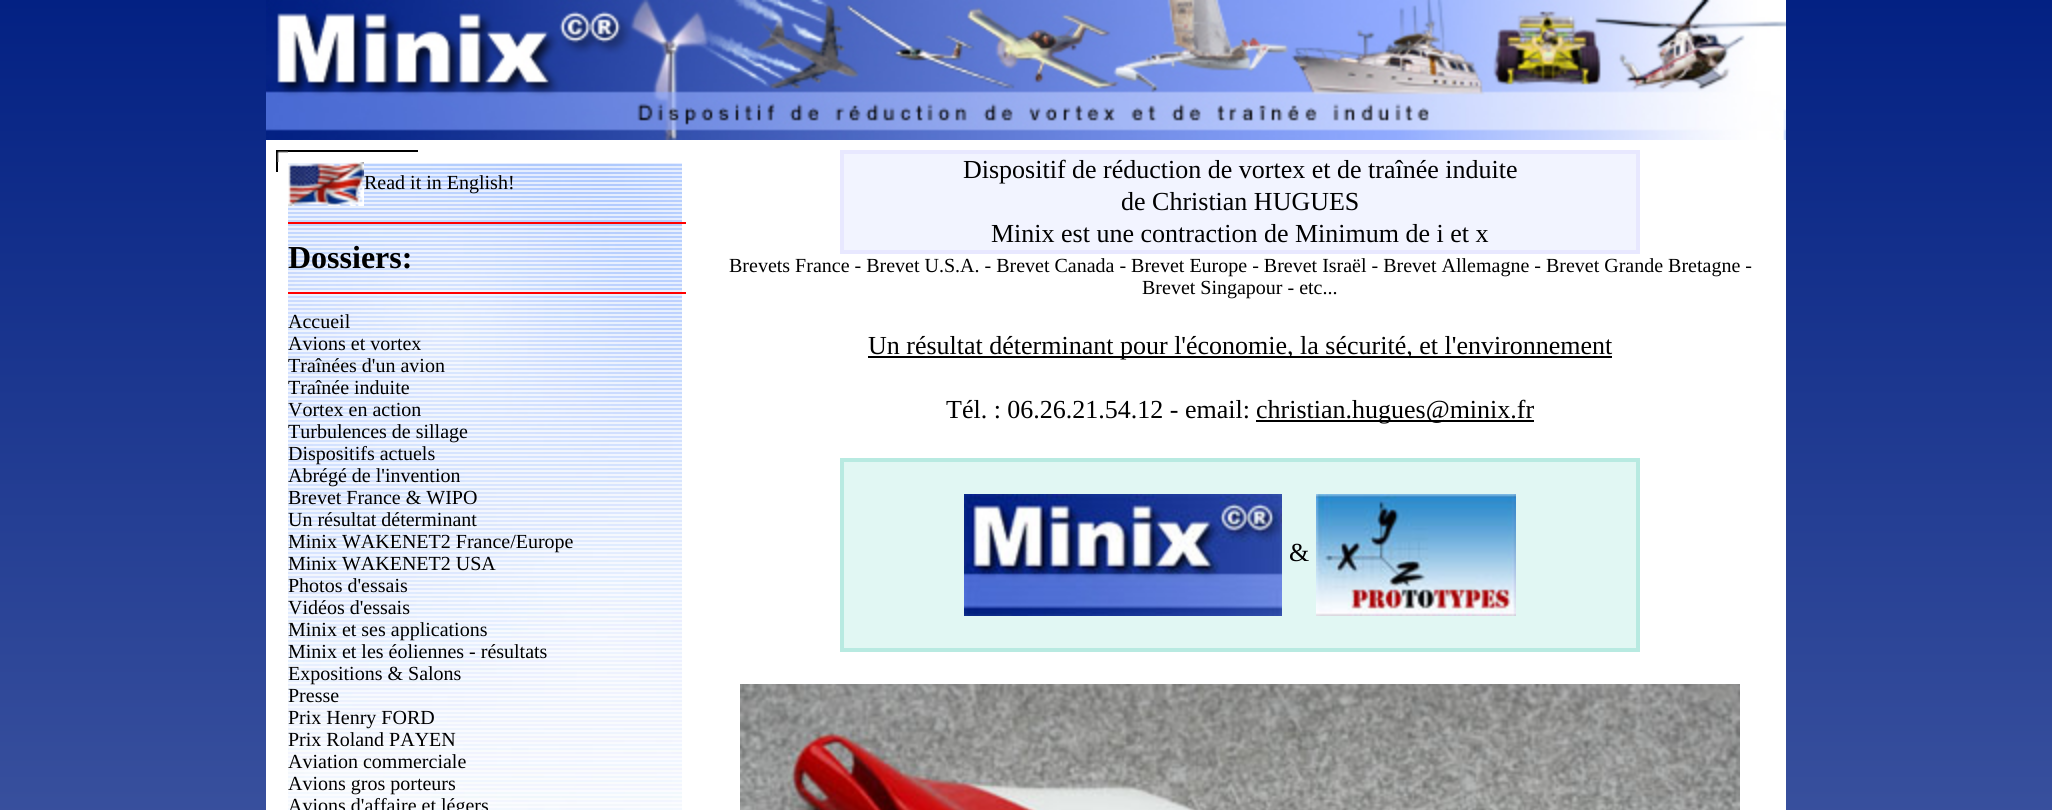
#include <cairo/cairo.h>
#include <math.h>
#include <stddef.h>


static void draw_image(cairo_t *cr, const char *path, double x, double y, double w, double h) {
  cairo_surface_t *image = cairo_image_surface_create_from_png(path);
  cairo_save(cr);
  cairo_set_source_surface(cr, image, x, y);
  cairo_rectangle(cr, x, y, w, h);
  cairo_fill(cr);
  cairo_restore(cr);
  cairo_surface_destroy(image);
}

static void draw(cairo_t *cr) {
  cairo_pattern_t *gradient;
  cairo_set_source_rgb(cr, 1, 1, 1);
  cairo_paint(cr);
  gradient = cairo_pattern_create_linear(133, 0, 133, 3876);
  cairo_pattern_add_color_stop_rgba(gradient, 0, 3 / 255.0, 33 / 255.0, 131 / 255.0, 1);
  cairo_pattern_add_color_stop_rgba(gradient, 1, 1, 1, 1, 1);
  cairo_set_source(cr, gradient);
  cairo_pattern_destroy(gradient);
  cairo_rectangle(cr, 0, 0, 266, 810);
  cairo_fill(cr);
  draw_image(cr, "images/1.png", 266, 0, 1520, 140);
  draw_image(cr, "images/2.png", 276, 150, 12, 12);
  cairo_set_source_rgb(cr, 0, 0, 0);
  cairo_rectangle(cr, 288, 150, 130, 2);
  cairo_fill(cr);
  cairo_rectangle(cr, 276, 162, 2, 10);
  cairo_fill(cr);
  draw_image(cr, "images/3.png", 288, 163, 394, 647);
  draw_image(cr, "images/4.png", 288, 162, 76, 44);
  cairo_set_source_rgb(cr, 1, 0, 0);
  cairo_rectangle(cr, 288, 222, 398, 2);
  cairo_fill(cr);
  cairo_rectangle(cr, 288, 292, 398, 2);
  cairo_fill(cr);
  cairo_set_source_rgb(cr, 242 / 255.0, 244 / 255.0, 1);
  cairo_rectangle(cr, 844, 154, 792, 96);
  cairo_fill(cr);
  cairo_rectangle(cr, 841, 151, 798, 102);
  cairo_set_source_rgb(cr, 232 / 255.0, 232 / 255.0, 1);
  cairo_stroke(cr);
  cairo_rectangle(cr, 843, 153, 794, 98);
  cairo_stroke(cr);
  cairo_set_source_rgb(cr, 0, 0, 0);
  cairo_rectangle(cr, 868, 356, 744, 2);
  cairo_fill(cr);
  cairo_rectangle(cr, 1256, 420, 278, 2);
  cairo_fill(cr);
  cairo_set_source_rgb(cr, 225 / 255.0, 247 / 255.0, 243 / 255.0);
  cairo_rectangle(cr, 844, 462, 792, 186);
  cairo_fill(cr);
  cairo_rectangle(cr, 841, 459, 798, 192);
  cairo_set_source_rgb(cr, 184 / 255.0, 234 / 255.0, 225 / 255.0);
  cairo_stroke(cr);
  cairo_rectangle(cr, 843, 461, 794, 188);
  cairo_stroke(cr);
  draw_image(cr, "images/5.png", 964, 494, 318, 122);
  draw_image(cr, "images/6.png", 1316, 494, 200, 122);
  draw_image(cr, "images/7.png", 740, 684, 1000, 126);
  gradient = cairo_pattern_create_linear(1919, 0, 1919, 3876);
  cairo_pattern_add_color_stop_rgba(gradient, 0, 3 / 255.0, 33 / 255.0, 131 / 255.0, 1);
  cairo_pattern_add_color_stop_rgba(gradient, 1, 1, 1, 1, 1);
  cairo_set_source(cr, gradient);
  cairo_pattern_destroy(gradient);
  cairo_rectangle(cr, 1786, 0, 266, 810);
  cairo_fill(cr);
  cairo_select_font_face(cr, "Liberation Serif", CAIRO_FONT_SLANT_NORMAL, CAIRO_FONT_WEIGHT_NORMAL);
  cairo_set_font_size(cr, 20);
  cairo_set_source_rgb(cr, 0, 0, 0);
  cairo_move_to(cr, 364, 189);
  cairo_show_text(cr, "Read it in English!");
  cairo_select_font_face(cr, "Liberation Serif", CAIRO_FONT_SLANT_NORMAL, CAIRO_FONT_WEIGHT_BOLD);
  cairo_set_font_size(cr, 32);
  cairo_move_to(cr, 288, 268);
  cairo_show_text(cr, "Dossiers:");
  cairo_select_font_face(cr, "Liberation Serif", CAIRO_FONT_SLANT_NORMAL, CAIRO_FONT_WEIGHT_NORMAL);
  cairo_set_font_size(cr, 20);
  cairo_move_to(cr, 288, 328);
  cairo_show_text(cr, "Accueil");
  cairo_move_to(cr, 288, 350);
  cairo_show_text(cr, "Avions et vortex");
  cairo_move_to(cr, 288, 372);
  cairo_show_text(cr, "Traînées d'un avion");
  cairo_move_to(cr, 288, 394);
  cairo_show_text(cr, "Traînée induite");
  cairo_move_to(cr, 288, 416);
  cairo_show_text(cr, "Vortex en action");
  cairo_move_to(cr, 288, 438);
  cairo_show_text(cr, "Turbulences de sillage");
  cairo_move_to(cr, 288, 460);
  cairo_show_text(cr, "Dispositifs actuels");
  cairo_move_to(cr, 288, 482);
  cairo_show_text(cr, "Abrégé de l'invention");
  cairo_move_to(cr, 288, 504);
  cairo_show_text(cr, "Brevet France & WIPO");
  cairo_move_to(cr, 288, 526);
  cairo_show_text(cr, "Un résultat déterminant");
  cairo_move_to(cr, 288, 548);
  cairo_show_text(cr, "Minix WAKENET2 France/Europe");
  cairo_move_to(cr, 288, 570);
  cairo_show_text(cr, "Minix WAKENET2 USA");
  cairo_move_to(cr, 288, 592);
  cairo_show_text(cr, "Photos d'essais");
  cairo_move_to(cr, 288, 614);
  cairo_show_text(cr, "Vidéos d'essais");
  cairo_move_to(cr, 288, 636);
  cairo_show_text(cr, "Minix et ses applications");
  cairo_move_to(cr, 288, 658);
  cairo_show_text(cr, "Minix et les éoliennes - résultats");
  cairo_move_to(cr, 288, 680);
  cairo_show_text(cr, "Expositions & Salons");
  cairo_move_to(cr, 288, 702);
  cairo_show_text(cr, "Presse");
  cairo_move_to(cr, 288, 724);
  cairo_show_text(cr, "Prix Henry FORD");
  cairo_move_to(cr, 288, 746);
  cairo_show_text(cr, "Prix Roland PAYEN");
  cairo_move_to(cr, 288, 768);
  cairo_show_text(cr, "Aviation commerciale");
  cairo_move_to(cr, 288, 790);
  cairo_show_text(cr, "Avions gros porteurs");
  cairo_move_to(cr, 288, 812);
  cairo_show_text(cr, "Avions d'affaire et légers");
  cairo_set_font_size(cr, 26);
  cairo_move_to(cr, 963, 178);
  cairo_show_text(cr, "Dispositif de réduction de vortex et de traînée induite");
  cairo_move_to(cr, 1121, 210);
  cairo_show_text(cr, "de Christian HUGUES");
  cairo_move_to(cr, 991, 242);
  cairo_show_text(cr, "Minix est une contraction de Minimum de i et x");
  cairo_set_font_size(cr, 20);
  cairo_move_to(cr, 729, 272);
  cairo_show_text(cr, "Brevets France - Brevet U.S.A. - Brevet Canada - Brevet Europe - Brevet Israël - Brevet Allemagne - Brevet Grande Bretagne -");
  cairo_move_to(cr, 1142, 294);
  cairo_show_text(cr, "Brevet Singapour - etc...");
  cairo_set_font_size(cr, 26);
  cairo_move_to(cr, 868, 354);
  cairo_show_text(cr, "Un résultat déterminant pour l'économie, la sécurité, et l'environnement");
  cairo_move_to(cr, 946, 418);
  cairo_show_text(cr, "Tél. : 06.26.21.54.12 - email:");
  cairo_move_to(cr, 1256, 418);
  cairo_show_text(cr, "christian.hugues@minix.fr");
  cairo_move_to(cr, 1289, 561);
  cairo_show_text(cr, "&");
}

int main(void) {
  cairo_surface_t *surface = cairo_image_surface_create(CAIRO_FORMAT_RGB24, 2052, 810);
  cairo_t *cr = cairo_create(surface);
  cairo_font_options_t *options = cairo_font_options_create();
  cairo_font_options_set_hint_metrics(options, CAIRO_HINT_METRICS_OFF);
  cairo_font_options_set_hint_style(options, CAIRO_HINT_STYLE_NONE);
  cairo_set_font_options(cr, options);
  cairo_set_miter_limit(cr, 4);
  draw(cr);
  cairo_surface_write_to_png(surface, "out.png");
  cairo_font_options_destroy(options);
  cairo_destroy(cr);
  cairo_surface_destroy(surface);
  return 0;
}
